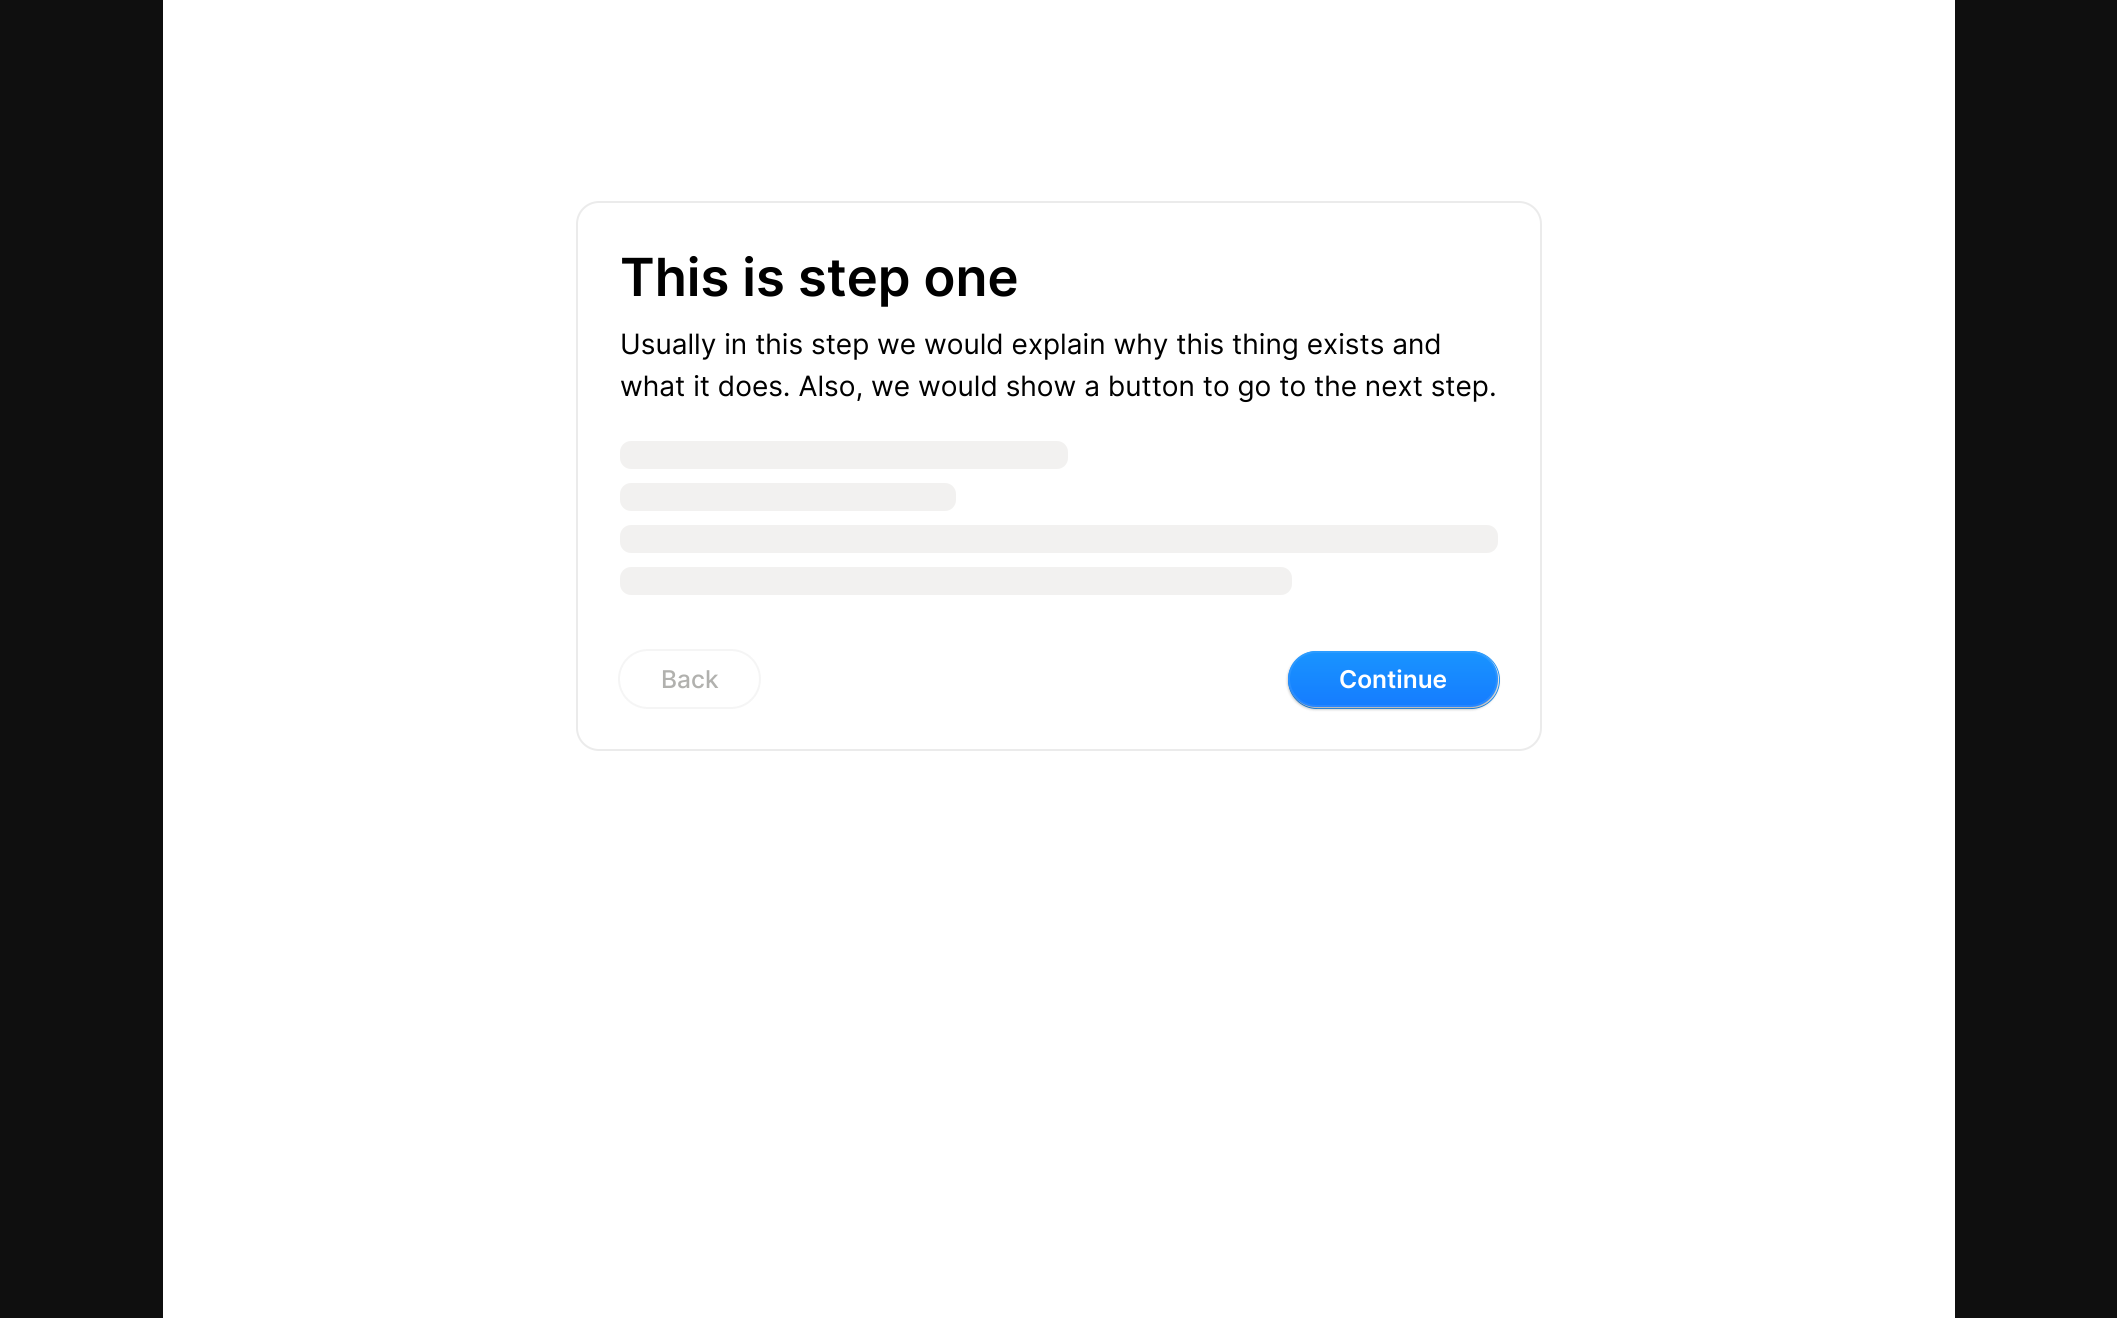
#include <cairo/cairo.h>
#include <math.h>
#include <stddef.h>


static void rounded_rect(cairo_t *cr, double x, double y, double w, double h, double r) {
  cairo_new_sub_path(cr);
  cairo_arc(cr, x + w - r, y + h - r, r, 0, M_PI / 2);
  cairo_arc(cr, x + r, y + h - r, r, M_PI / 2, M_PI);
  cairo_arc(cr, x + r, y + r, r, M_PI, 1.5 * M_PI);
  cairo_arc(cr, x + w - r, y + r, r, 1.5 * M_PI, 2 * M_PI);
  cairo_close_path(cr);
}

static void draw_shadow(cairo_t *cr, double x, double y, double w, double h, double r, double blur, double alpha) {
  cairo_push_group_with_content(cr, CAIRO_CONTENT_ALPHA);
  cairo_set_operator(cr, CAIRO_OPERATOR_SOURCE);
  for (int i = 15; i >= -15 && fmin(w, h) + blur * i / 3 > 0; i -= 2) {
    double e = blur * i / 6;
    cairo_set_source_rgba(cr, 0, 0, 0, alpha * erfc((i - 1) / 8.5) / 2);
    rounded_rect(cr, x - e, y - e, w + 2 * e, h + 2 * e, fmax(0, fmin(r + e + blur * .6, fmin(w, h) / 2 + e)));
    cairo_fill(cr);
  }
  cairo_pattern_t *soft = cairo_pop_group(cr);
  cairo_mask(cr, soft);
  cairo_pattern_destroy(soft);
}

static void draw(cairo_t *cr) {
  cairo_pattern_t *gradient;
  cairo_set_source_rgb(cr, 15 / 255.0, 15 / 255.0, 15 / 255.0);
  cairo_paint(cr);
  cairo_set_source_rgb(cr, 1, 1, 1);
  cairo_rectangle(cr, 163, 0, 1792, 1318);
  cairo_fill(cr);
  rounded_rect(cr, 577, 202, 964, 548, 22);
  cairo_set_source_rgba(cr, 0, 0, 0, 0.08);
  cairo_stroke(cr);
  cairo_set_source_rgb(cr, 242 / 255.0, 241 / 255.0, 240 / 255.0);
  rounded_rect(cr, 620, 441, 448, 28, 11);
  cairo_fill(cr);
  rounded_rect(cr, 620, 483, 336, 28, 11);
  cairo_fill(cr);
  rounded_rect(cr, 620, 525, 878, 28, 11);
  cairo_fill(cr);
  rounded_rect(cr, 620, 567, 672, 28, 11);
  cairo_fill(cr);
  rounded_rect(cr, 619, 650, 141, 58, 29);
  cairo_set_source_rgba(cr, 128 / 255.0, 128 / 255.0, 128 / 255.0, 0.08);
  cairo_stroke(cr);
  rounded_rect(cr, 1288.45, 651.45, 211.1, 57.1, 28.55);
  cairo_set_source_rgb(cr, 26 / 255.0, 148 / 255.0, 1);
  cairo_set_line_width(cr, 0.9);
  cairo_stroke(cr);
  cairo_set_source_rgb(cr, 0, 0, 0);
  draw_shadow(cr, 1288, 653, 210, 56, 28, 1.5, 0.32);
  gradient = cairo_pattern_create_linear(1393, 651, 1393, 707);
  cairo_pattern_add_color_stop_rgba(gradient, 0, 25 / 255.0, 148 / 255.0, 1, 1);
  cairo_pattern_add_color_stop_rgba(gradient, 1, 21 / 255.0, 124 / 255.0, 1, 1);
  cairo_set_source(cr, gradient);
  cairo_pattern_destroy(gradient);
  rounded_rect(cr, 1288, 651, 210, 56, 28);
  cairo_fill(cr);
  rounded_rect(cr, 1289, 652, 208, 54, 27);
  cairo_set_source_rgba(cr, 1, 1, 1, 0.08);
  cairo_set_line_width(cr, 2);
  cairo_stroke(cr);
  cairo_select_font_face(cr, "Inter SemiBold", CAIRO_FONT_SLANT_NORMAL, CAIRO_FONT_WEIGHT_NORMAL);
  cairo_set_font_size(cr, 52.5);
  cairo_set_source_rgb(cr, 0, 0, 0);
  cairo_move_to(cr, 620, 296);
  cairo_show_text(cr, "This is step one");
  cairo_select_font_face(cr, "Inter", CAIRO_FONT_SLANT_NORMAL, CAIRO_FONT_WEIGHT_NORMAL);
  cairo_set_font_size(cr, 28);
  cairo_move_to(cr, 620, 354);
  cairo_show_text(cr, "Usually in this step we would explain why this thing exists and");
  cairo_move_to(cr, 620, 396);
  cairo_show_text(cr, "what it does. Also, we would show a button to go to the next step.");
  cairo_select_font_face(cr, "Inter Medium", CAIRO_FONT_SLANT_NORMAL, CAIRO_FONT_WEIGHT_NORMAL);
  cairo_set_font_size(cr, 24.5);
  cairo_set_source_rgb(cr, 177 / 255.0, 177 / 255.0, 174 / 255.0);
  cairo_move_to(cr, 661, 688);
  cairo_show_text(cr, "Back");
  cairo_select_font_face(cr, "Inter SemiBold", CAIRO_FONT_SLANT_NORMAL, CAIRO_FONT_WEIGHT_NORMAL);
  cairo_set_source_rgb(cr, 1, 1, 1);
  cairo_move_to(cr, 1339, 688);
  cairo_show_text(cr, "Continue");
}

int main(void) {
  cairo_surface_t *surface = cairo_image_surface_create(CAIRO_FORMAT_RGB24, 2117, 1318);
  cairo_t *cr = cairo_create(surface);
  cairo_font_options_t *options = cairo_font_options_create();
  cairo_font_options_set_hint_metrics(options, CAIRO_HINT_METRICS_OFF);
  cairo_font_options_set_hint_style(options, CAIRO_HINT_STYLE_NONE);
  cairo_set_font_options(cr, options);
  cairo_set_miter_limit(cr, 4);
  draw(cr);
  cairo_surface_write_to_png(surface, "out.png");
  cairo_font_options_destroy(options);
  cairo_destroy(cr);
  cairo_surface_destroy(surface);
  return 0;
}
